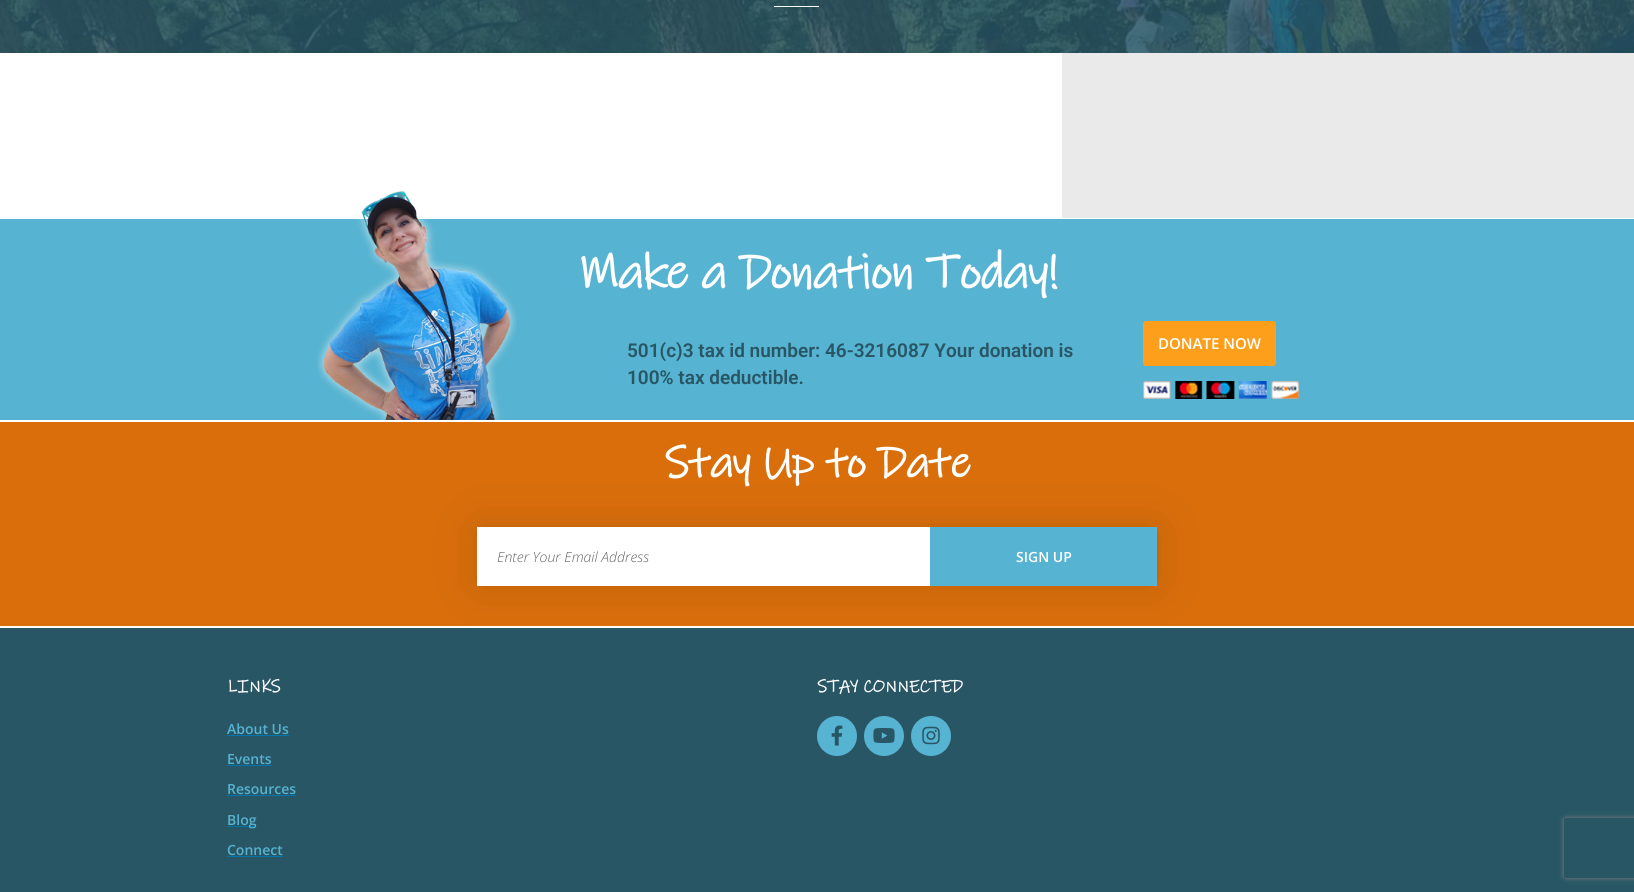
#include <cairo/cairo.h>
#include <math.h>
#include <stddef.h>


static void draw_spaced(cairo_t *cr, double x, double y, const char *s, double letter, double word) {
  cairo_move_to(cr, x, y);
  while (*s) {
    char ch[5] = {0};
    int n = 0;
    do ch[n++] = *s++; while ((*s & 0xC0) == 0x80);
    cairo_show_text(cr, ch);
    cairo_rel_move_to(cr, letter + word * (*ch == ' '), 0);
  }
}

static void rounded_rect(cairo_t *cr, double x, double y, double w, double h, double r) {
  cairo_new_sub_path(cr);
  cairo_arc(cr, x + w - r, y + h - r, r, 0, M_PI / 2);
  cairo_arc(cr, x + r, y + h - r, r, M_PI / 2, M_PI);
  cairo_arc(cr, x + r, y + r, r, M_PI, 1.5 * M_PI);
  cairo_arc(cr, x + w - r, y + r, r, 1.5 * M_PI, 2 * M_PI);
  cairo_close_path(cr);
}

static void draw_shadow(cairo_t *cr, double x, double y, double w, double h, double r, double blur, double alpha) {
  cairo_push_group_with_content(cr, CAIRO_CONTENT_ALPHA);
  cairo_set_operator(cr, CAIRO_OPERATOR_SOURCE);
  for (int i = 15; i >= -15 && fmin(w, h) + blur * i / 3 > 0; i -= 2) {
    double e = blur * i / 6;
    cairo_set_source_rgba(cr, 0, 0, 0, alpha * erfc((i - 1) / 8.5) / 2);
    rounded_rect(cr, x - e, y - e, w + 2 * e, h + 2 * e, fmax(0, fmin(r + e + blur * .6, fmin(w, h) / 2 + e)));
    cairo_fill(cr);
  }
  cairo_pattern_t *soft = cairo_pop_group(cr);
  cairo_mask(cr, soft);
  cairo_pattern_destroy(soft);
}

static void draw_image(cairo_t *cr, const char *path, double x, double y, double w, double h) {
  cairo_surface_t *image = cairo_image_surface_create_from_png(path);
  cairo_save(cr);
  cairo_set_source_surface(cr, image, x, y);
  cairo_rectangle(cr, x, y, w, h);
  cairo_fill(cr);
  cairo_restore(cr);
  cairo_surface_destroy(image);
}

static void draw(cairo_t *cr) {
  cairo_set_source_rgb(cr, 1, 1, 1);
  cairo_paint(cr);
  draw_image(cr, "images/1.png", 0, 0, 1634, 53);
  cairo_set_source_rgb(cr, 1, 1, 1);
  cairo_rectangle(cr, 774, 6, 45, 1);
  cairo_fill(cr);
  cairo_set_source_rgb(cr, 234 / 255.0, 234 / 255.0, 234 / 255.0);
  cairo_rectangle(cr, 1062, 53, 572, 165);
  cairo_fill(cr);
  cairo_set_source_rgb(cr, 86 / 255.0, 179 / 255.0, 209 / 255.0);
  cairo_rectangle(cr, 0, 219, 1634, 201);
  cairo_fill(cr);
  draw_image(cr, "images/2.png", 317, 191, 200, 229);
  cairo_set_source_rgb(cr, 253 / 255.0, 159 / 255.0, 27 / 255.0);
  rounded_rect(cr, 1143, 321, 133, 45, 3);
  cairo_fill(cr);
  draw_image(cr, "images/3.png", 1143, 381, 156, 18);
  cairo_set_source_rgb(cr, 217 / 255.0, 110 / 255.0, 11 / 255.0);
  cairo_rectangle(cr, 0, 422, 1634, 204);
  cairo_fill(cr);
  cairo_set_source_rgb(cr, 0, 0, 0);
  draw_shadow(cr, 477, 527, 680, 59, 0, 24, 0.11);
  cairo_set_source_rgb(cr, 1, 1, 1);
  cairo_rectangle(cr, 477, 527, 453, 59);
  cairo_fill(cr);
  cairo_set_source_rgb(cr, 86 / 255.0, 179 / 255.0, 209 / 255.0);
  cairo_rectangle(cr, 930, 527, 227, 59);
  cairo_fill(cr);
  cairo_set_source_rgb(cr, 40 / 255.0, 86 / 255.0, 101 / 255.0);
  cairo_rectangle(cr, 0, 628, 1634, 264);
  cairo_fill(cr);
  cairo_set_source_rgb(cr, 0, 115 / 255.0, 170 / 255.0);
  cairo_rectangle(cr, 227, 735, 62, 1);
  cairo_fill(cr);
  cairo_rectangle(cr, 227, 765, 45, 1);
  cairo_fill(cr);
  cairo_rectangle(cr, 227, 795, 69, 1);
  cairo_fill(cr);
  cairo_rectangle(cr, 227, 826, 29, 1);
  cairo_fill(cr);
  cairo_rectangle(cr, 227, 856, 56, 1);
  cairo_fill(cr);
  cairo_set_source_rgb(cr, 86 / 255.0, 179 / 255.0, 209 / 255.0);
  cairo_arc(cr, 837, 736, 20, 0, 2 * M_PI);
  cairo_fill(cr);
  draw_image(cr, "images/4.png", 831, 725, 12, 21);
  cairo_arc(cr, 884, 736, 20, 0, 2 * M_PI);
  cairo_fill(cr);
  draw_image(cr, "images/5.png", 873, 728, 22, 15);
  cairo_arc(cr, 931, 736, 20, 0, 2 * M_PI);
  cairo_fill(cr);
  draw_image(cr, "images/6.png", 922, 726, 18, 19);
  cairo_save(cr);
  cairo_set_fill_rule(cr, CAIRO_FILL_RULE_EVEN_ODD);
  cairo_new_path(cr);
  cairo_move_to(cr, 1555, 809);
  cairo_line_to(cr, 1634, 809);
  cairo_line_to(cr, 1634, 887);
  cairo_line_to(cr, 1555, 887);
  cairo_close_path(cr);
  cairo_move_to(cr, 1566, 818);
  cairo_line_to(cr, 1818, 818);
  cairo_curve_to(cr, 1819, 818, 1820, 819, 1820, 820);
  cairo_line_to(cr, 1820, 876);
  cairo_curve_to(cr, 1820, 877, 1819, 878, 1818, 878);
  cairo_line_to(cr, 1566, 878);
  cairo_curve_to(cr, 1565, 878, 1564, 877, 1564, 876);
  cairo_line_to(cr, 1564, 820);
  cairo_curve_to(cr, 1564, 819, 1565, 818, 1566, 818);
  cairo_close_path(cr);
  cairo_clip(cr);
  cairo_set_source_rgb(cr, 128 / 255.0, 128 / 255.0, 128 / 255.0);
  draw_shadow(cr, 1564, 818, 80, 60, 2, 2.5, 1);
  cairo_restore(cr);
  cairo_select_font_face(cr, "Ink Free", CAIRO_FONT_SLANT_NORMAL, CAIRO_FONT_WEIGHT_BOLD);
  cairo_set_font_size(cr, 49.5);
  cairo_set_source_rgb(cr, 1, 1, 1);
  draw_spaced(cr, 578, 288, "Make a Donation Today!", -1, 0);
  cairo_select_font_face(cr, "Roboto SemiBold", CAIRO_FONT_SLANT_NORMAL, CAIRO_FONT_WEIGHT_NORMAL);
  cairo_set_font_size(cr, 19);
  cairo_set_source_rgb(cr, 40 / 255.0, 86 / 255.0, 101 / 255.0);
  cairo_move_to(cr, 627, 357);
  cairo_show_text(cr, "501(c)3 tax id number: 46-3216087 Your donation is");
  cairo_move_to(cr, 627, 384);
  cairo_show_text(cr, "100% tax deductible.");
  cairo_select_font_face(cr, "Open Sans SemiBold", CAIRO_FONT_SLANT_NORMAL, CAIRO_FONT_WEIGHT_NORMAL);
  cairo_set_font_size(cr, 15);
  cairo_set_source_rgb(cr, 1, 1, 1);
  cairo_move_to(cr, 1158, 349);
  cairo_show_text(cr, "DONATE NOW");
  cairo_select_font_face(cr, "Ink Free", CAIRO_FONT_SLANT_NORMAL, CAIRO_FONT_WEIGHT_BOLD);
  cairo_set_font_size(cr, 45);
  draw_spaced(cr, 664, 477, "Stay Up to Date", -0.9, 0);
  cairo_select_font_face(cr, "Open Sans Light", CAIRO_FONT_SLANT_ITALIC, CAIRO_FONT_WEIGHT_NORMAL);
  cairo_set_font_size(cr, 14);
  cairo_set_source_rgb(cr, 102 / 255.0, 102 / 255.0, 102 / 255.0);
  cairo_move_to(cr, 497, 562);
  cairo_show_text(cr, "Enter Your Email Address");
  cairo_select_font_face(cr, "Open Sans SemiBold", CAIRO_FONT_SLANT_NORMAL, CAIRO_FONT_WEIGHT_NORMAL);
  cairo_set_source_rgb(cr, 1, 1, 1);
  cairo_move_to(cr, 1016, 562);
  cairo_show_text(cr, "SIGN UP");
  cairo_select_font_face(cr, "Ink Free", CAIRO_FONT_SLANT_NORMAL, CAIRO_FONT_WEIGHT_BOLD);
  cairo_set_font_size(cr, 18);
  draw_spaced(cr, 227, 692, "LINKS", -0.4, 0);
  cairo_select_font_face(cr, "Open Sans SemiBold", CAIRO_FONT_SLANT_NORMAL, CAIRO_FONT_WEIGHT_NORMAL);
  cairo_set_font_size(cr, 14);
  cairo_set_source_rgb(cr, 86 / 255.0, 179 / 255.0, 209 / 255.0);
  cairo_move_to(cr, 227, 734);
  cairo_show_text(cr, "About Us");
  cairo_move_to(cr, 227, 764);
  cairo_show_text(cr, "Events");
  cairo_move_to(cr, 227, 794);
  cairo_show_text(cr, "Resources");
  cairo_move_to(cr, 227, 825);
  cairo_show_text(cr, "Blog");
  cairo_move_to(cr, 227, 855);
  cairo_show_text(cr, "Connect");
  cairo_select_font_face(cr, "Ink Free", CAIRO_FONT_SLANT_NORMAL, CAIRO_FONT_WEIGHT_BOLD);
  cairo_set_font_size(cr, 18);
  cairo_set_source_rgb(cr, 1, 1, 1);
  draw_spaced(cr, 817, 692, "STAY CONNECTED", -0.4, 0);
}

int main(void) {
  cairo_surface_t *surface = cairo_image_surface_create(CAIRO_FORMAT_RGB24, 1634, 892);
  cairo_t *cr = cairo_create(surface);
  cairo_font_options_t *options = cairo_font_options_create();
  cairo_font_options_set_hint_metrics(options, CAIRO_HINT_METRICS_OFF);
  cairo_font_options_set_hint_style(options, CAIRO_HINT_STYLE_NONE);
  cairo_set_font_options(cr, options);
  cairo_set_miter_limit(cr, 4);
  draw(cr);
  cairo_surface_write_to_png(surface, "out.png");
  cairo_font_options_destroy(options);
  cairo_destroy(cr);
  cairo_surface_destroy(surface);
  return 0;
}
